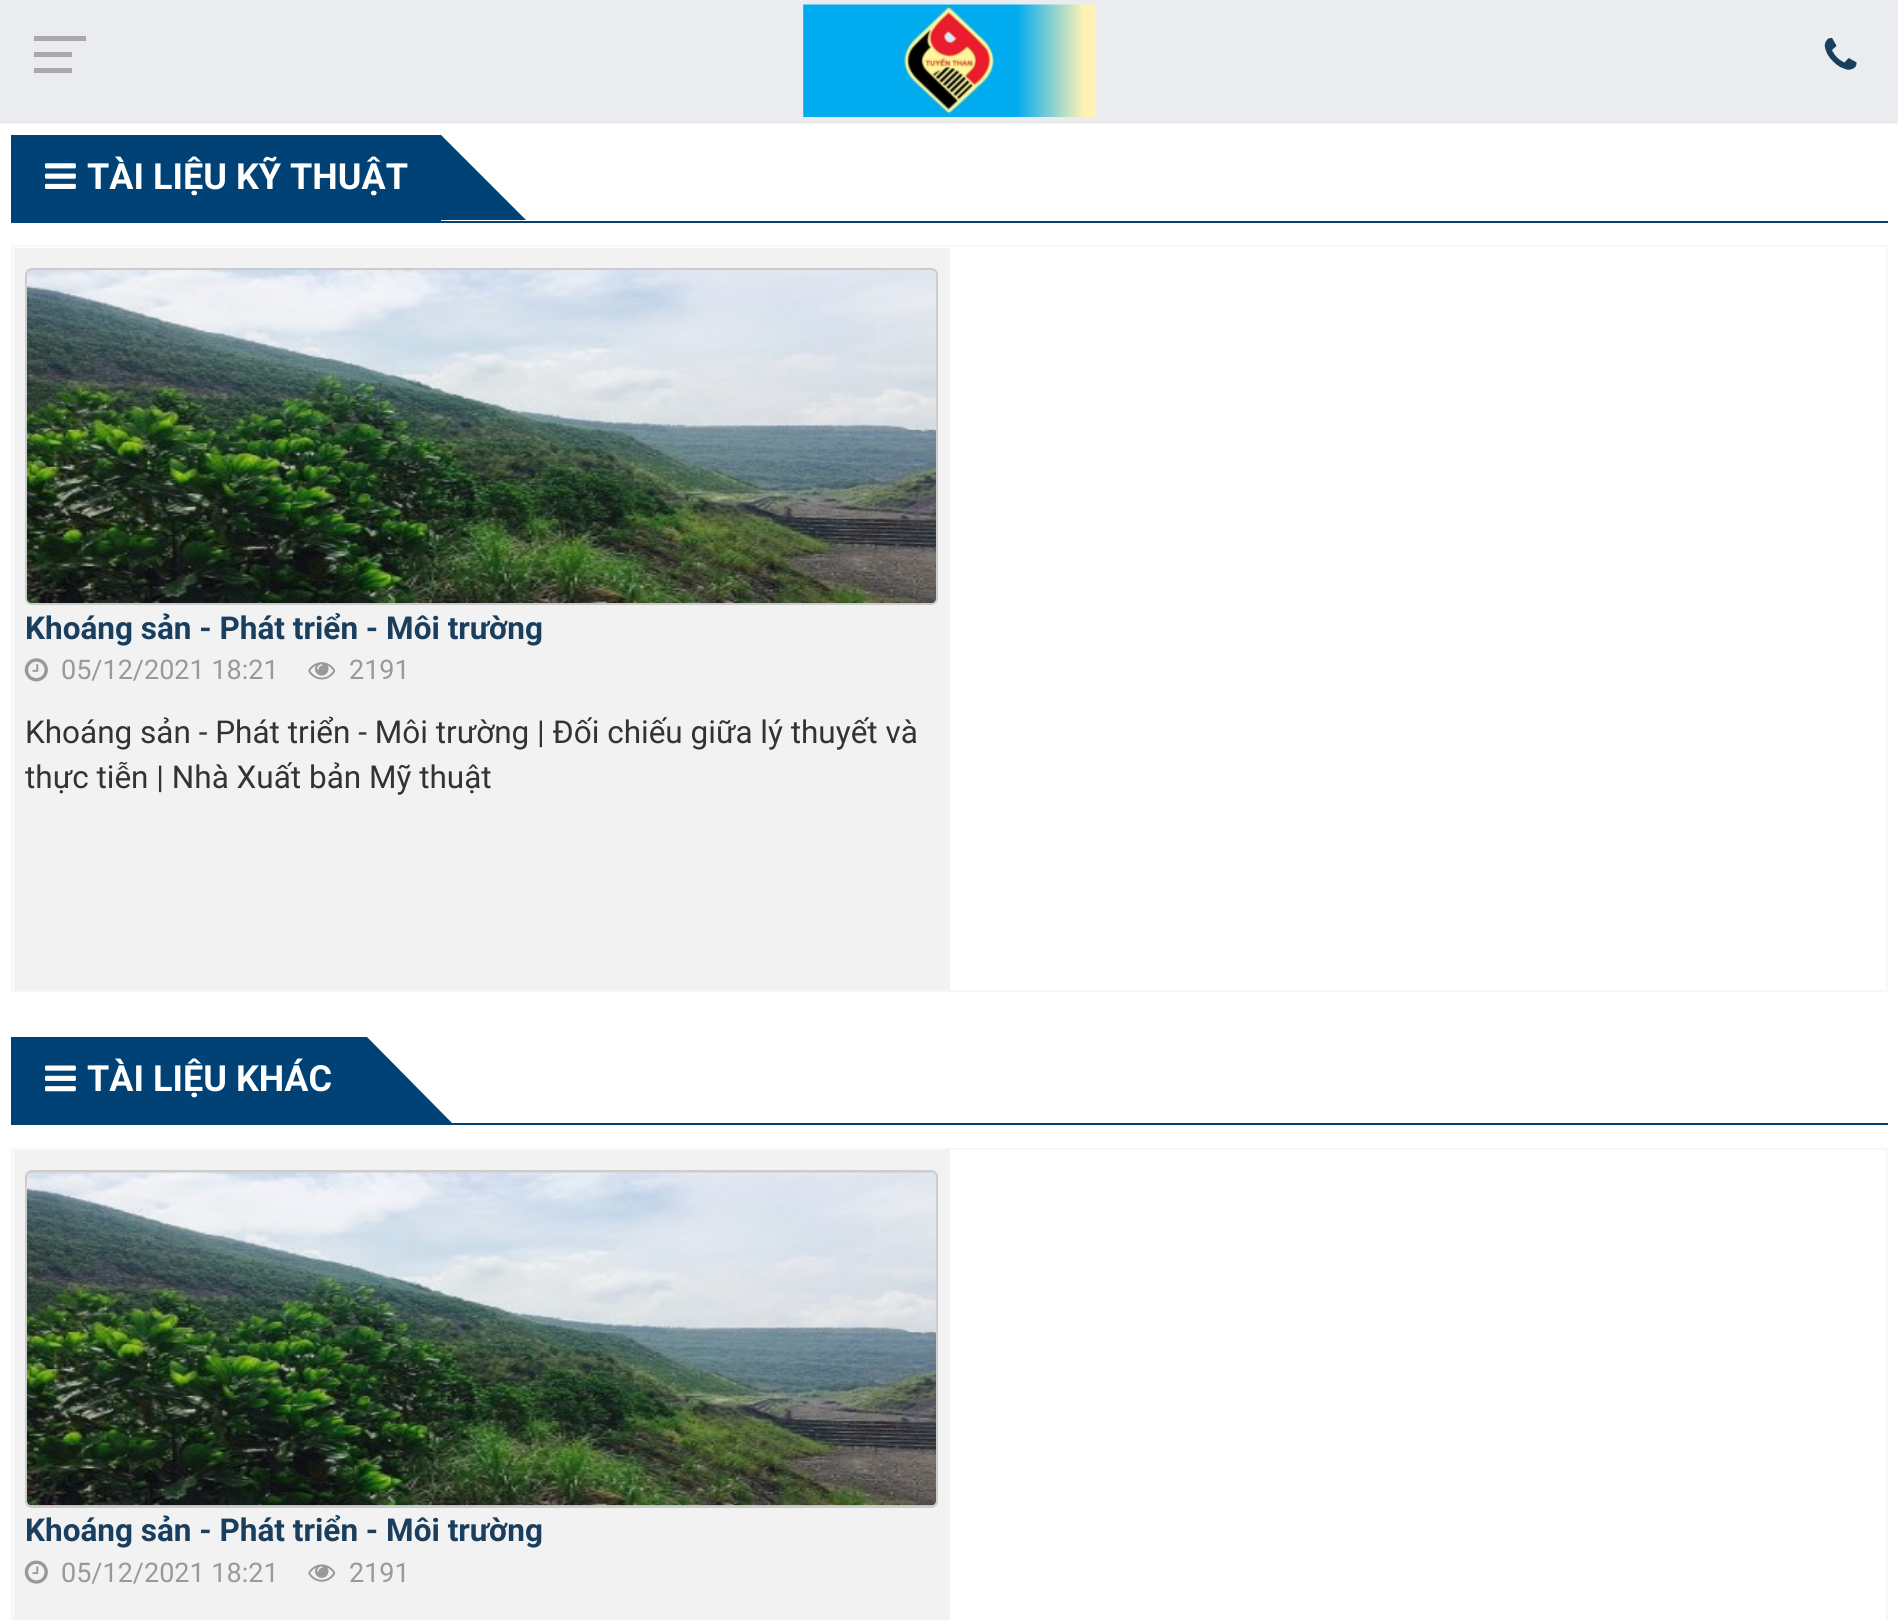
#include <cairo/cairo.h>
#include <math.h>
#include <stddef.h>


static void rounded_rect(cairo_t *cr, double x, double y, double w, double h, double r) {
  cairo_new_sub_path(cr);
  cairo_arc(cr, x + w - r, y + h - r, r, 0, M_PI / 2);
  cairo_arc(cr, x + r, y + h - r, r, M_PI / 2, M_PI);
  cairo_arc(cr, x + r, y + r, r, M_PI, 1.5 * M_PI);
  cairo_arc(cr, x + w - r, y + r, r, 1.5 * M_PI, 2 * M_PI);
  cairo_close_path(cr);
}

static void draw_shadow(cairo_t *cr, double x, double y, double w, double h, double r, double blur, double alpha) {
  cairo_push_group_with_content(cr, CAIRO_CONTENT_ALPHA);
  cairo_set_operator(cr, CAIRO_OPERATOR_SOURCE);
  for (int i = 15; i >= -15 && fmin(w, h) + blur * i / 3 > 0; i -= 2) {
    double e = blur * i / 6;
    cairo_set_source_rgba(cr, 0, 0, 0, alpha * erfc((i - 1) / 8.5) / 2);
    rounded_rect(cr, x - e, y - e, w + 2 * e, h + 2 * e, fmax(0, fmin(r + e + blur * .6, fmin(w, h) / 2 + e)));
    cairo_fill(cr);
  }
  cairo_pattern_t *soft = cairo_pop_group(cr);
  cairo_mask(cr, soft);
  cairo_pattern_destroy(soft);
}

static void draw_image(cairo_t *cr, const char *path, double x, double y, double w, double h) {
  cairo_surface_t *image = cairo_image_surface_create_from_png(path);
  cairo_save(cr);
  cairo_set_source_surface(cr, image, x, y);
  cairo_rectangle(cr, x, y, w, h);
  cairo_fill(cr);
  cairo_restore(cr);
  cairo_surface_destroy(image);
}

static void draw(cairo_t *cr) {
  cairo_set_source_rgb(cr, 1, 1, 1);
  cairo_paint(cr);
  cairo_set_source_rgb(cr, 0, 0, 0);
  draw_shadow(cr, 0, 0, 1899, 122, 0, 1, 0.3);
  cairo_set_source_rgb(cr, 234 / 255.0, 236 / 255.0, 240 / 255.0);
  cairo_rectangle(cr, 0, 0, 1898, 122);
  cairo_fill(cr);
  cairo_set_source_rgb(cr, 169 / 255.0, 169 / 255.0, 169 / 255.0);
  cairo_rectangle(cr, 34, 52, 38, 5);
  cairo_fill(cr);
  cairo_rectangle(cr, 34, 36, 52, 5);
  cairo_fill(cr);
  cairo_rectangle(cr, 34, 68, 38, 5);
  cairo_fill(cr);
  draw_image(cr, "images/1.png", 803, 4, 293, 113);
  draw_image(cr, "images/2.png", 1824, 37, 33, 33);
  cairo_set_source_rgb(cr, 0, 66 / 255.0, 117 / 255.0);
  cairo_rectangle(cr, 11, 135, 430, 86);
  cairo_fill(cr);
  draw_image(cr, "images/3.png", 45, 163, 31, 26);
  cairo_new_path(cr);
  cairo_move_to(cr, 526, 220);
  cairo_line_to(cr, 441, 220);
  cairo_line_to(cr, 441, 135);
  cairo_close_path(cr);
  cairo_fill(cr);
  cairo_rectangle(cr, 11, 221, 1877, 2);
  cairo_fill(cr);
  cairo_rectangle(cr, 12, 246, 1875, 745);
  cairo_set_source_rgb(cr, 247 / 255.0, 247 / 255.0, 247 / 255.0);
  cairo_stroke(cr);
  cairo_set_source_rgb(cr, 242 / 255.0, 242 / 255.0, 242 / 255.0);
  cairo_rectangle(cr, 14, 248, 936, 742);
  cairo_fill(cr);
  cairo_set_source_rgb(cr, 204 / 255.0, 204 / 255.0, 204 / 255.0);
  rounded_rect(cr, 25, 268, 913, 337, 7);
  cairo_fill(cr);
  draw_image(cr, "images/4.png", 27, 270, 909, 333);
  draw_image(cr, "images/5.png", 24, 658, 24, 24);
  draw_image(cr, "images/6.png", 308, 662, 28, 18);
  cairo_set_source_rgb(cr, 0, 66 / 255.0, 117 / 255.0);
  cairo_rectangle(cr, 11, 1037, 356, 86);
  cairo_fill(cr);
  draw_image(cr, "images/7.png", 45, 1065, 31, 27);
  cairo_new_path(cr);
  cairo_move_to(cr, 452, 1123);
  cairo_line_to(cr, 367, 1123);
  cairo_line_to(cr, 367, 1037);
  cairo_close_path(cr);
  cairo_fill(cr);
  cairo_rectangle(cr, 11, 1123, 1877, 2);
  cairo_fill(cr);
  cairo_rectangle(cr, 12, 1149, 1875, 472);
  cairo_set_source_rgb(cr, 247 / 255.0, 247 / 255.0, 247 / 255.0);
  cairo_stroke(cr);
  cairo_set_source_rgb(cr, 242 / 255.0, 242 / 255.0, 242 / 255.0);
  cairo_rectangle(cr, 14, 1150, 936, 470);
  cairo_fill(cr);
  cairo_set_source_rgb(cr, 204 / 255.0, 204 / 255.0, 204 / 255.0);
  rounded_rect(cr, 25, 1170, 913, 338, 7);
  cairo_fill(cr);
  draw_image(cr, "images/8.png", 27, 1172, 909, 334);
  draw_image(cr, "images/9.png", 24, 1560, 24, 24);
  draw_image(cr, "images/10.png", 308, 1564, 28, 18);
  cairo_select_font_face(cr, "Roboto", CAIRO_FONT_SLANT_NORMAL, CAIRO_FONT_WEIGHT_BOLD);
  cairo_set_font_size(cr, 36);
  cairo_set_source_rgb(cr, 1, 1, 1);
  cairo_move_to(cr, 87, 189);
  cairo_show_text(cr, "TÀI LIỆU KỸ THUẬT");
  cairo_set_font_size(cr, 31.5);
  cairo_set_source_rgb(cr, 26 / 255.0, 63 / 255.0, 94 / 255.0);
  cairo_move_to(cr, 25, 639);
  cairo_show_text(cr, "Khoáng sản - Phát triển - Môi trường");
  cairo_select_font_face(cr, "Roboto", CAIRO_FONT_SLANT_NORMAL, CAIRO_FONT_WEIGHT_NORMAL);
  cairo_set_font_size(cr, 27);
  cairo_set_source_rgb(cr, 153 / 255.0, 153 / 255.0, 153 / 255.0);
  cairo_move_to(cr, 61, 679);
  cairo_show_text(cr, "05/12/2021 18:21");
  cairo_move_to(cr, 349, 679);
  cairo_show_text(cr, "2191");
  cairo_set_font_size(cr, 31.5);
  cairo_set_source_rgb(cr, 51 / 255.0, 51 / 255.0, 51 / 255.0);
  cairo_move_to(cr, 25, 743);
  cairo_show_text(cr, "Khoáng sản - Phát triển - Môi trường | Đối chiếu giữa lý thuyết và");
  cairo_move_to(cr, 25, 788);
  cairo_show_text(cr, "thực tiễn | Nhà Xuất bản Mỹ thuật");
  cairo_select_font_face(cr, "Roboto", CAIRO_FONT_SLANT_NORMAL, CAIRO_FONT_WEIGHT_BOLD);
  cairo_set_font_size(cr, 36);
  cairo_set_source_rgb(cr, 1, 1, 1);
  cairo_move_to(cr, 87, 1091);
  cairo_show_text(cr, "TÀI LIỆU KHÁC");
  cairo_set_font_size(cr, 31.5);
  cairo_set_source_rgb(cr, 26 / 255.0, 63 / 255.0, 94 / 255.0);
  cairo_move_to(cr, 25, 1541);
  cairo_show_text(cr, "Khoáng sản - Phát triển - Môi trường");
  cairo_select_font_face(cr, "Roboto", CAIRO_FONT_SLANT_NORMAL, CAIRO_FONT_WEIGHT_NORMAL);
  cairo_set_font_size(cr, 27);
  cairo_set_source_rgb(cr, 153 / 255.0, 153 / 255.0, 153 / 255.0);
  cairo_move_to(cr, 61, 1582);
  cairo_show_text(cr, "05/12/2021 18:21");
  cairo_move_to(cr, 349, 1582);
  cairo_show_text(cr, "2191");
}

int main(void) {
  cairo_surface_t *surface = cairo_image_surface_create(CAIRO_FORMAT_RGB24, 1898, 1620);
  cairo_t *cr = cairo_create(surface);
  cairo_font_options_t *options = cairo_font_options_create();
  cairo_font_options_set_hint_metrics(options, CAIRO_HINT_METRICS_OFF);
  cairo_font_options_set_hint_style(options, CAIRO_HINT_STYLE_NONE);
  cairo_set_font_options(cr, options);
  cairo_set_miter_limit(cr, 4);
  draw(cr);
  cairo_surface_write_to_png(surface, "out.png");
  cairo_font_options_destroy(options);
  cairo_destroy(cr);
  cairo_surface_destroy(surface);
  return 0;
}
